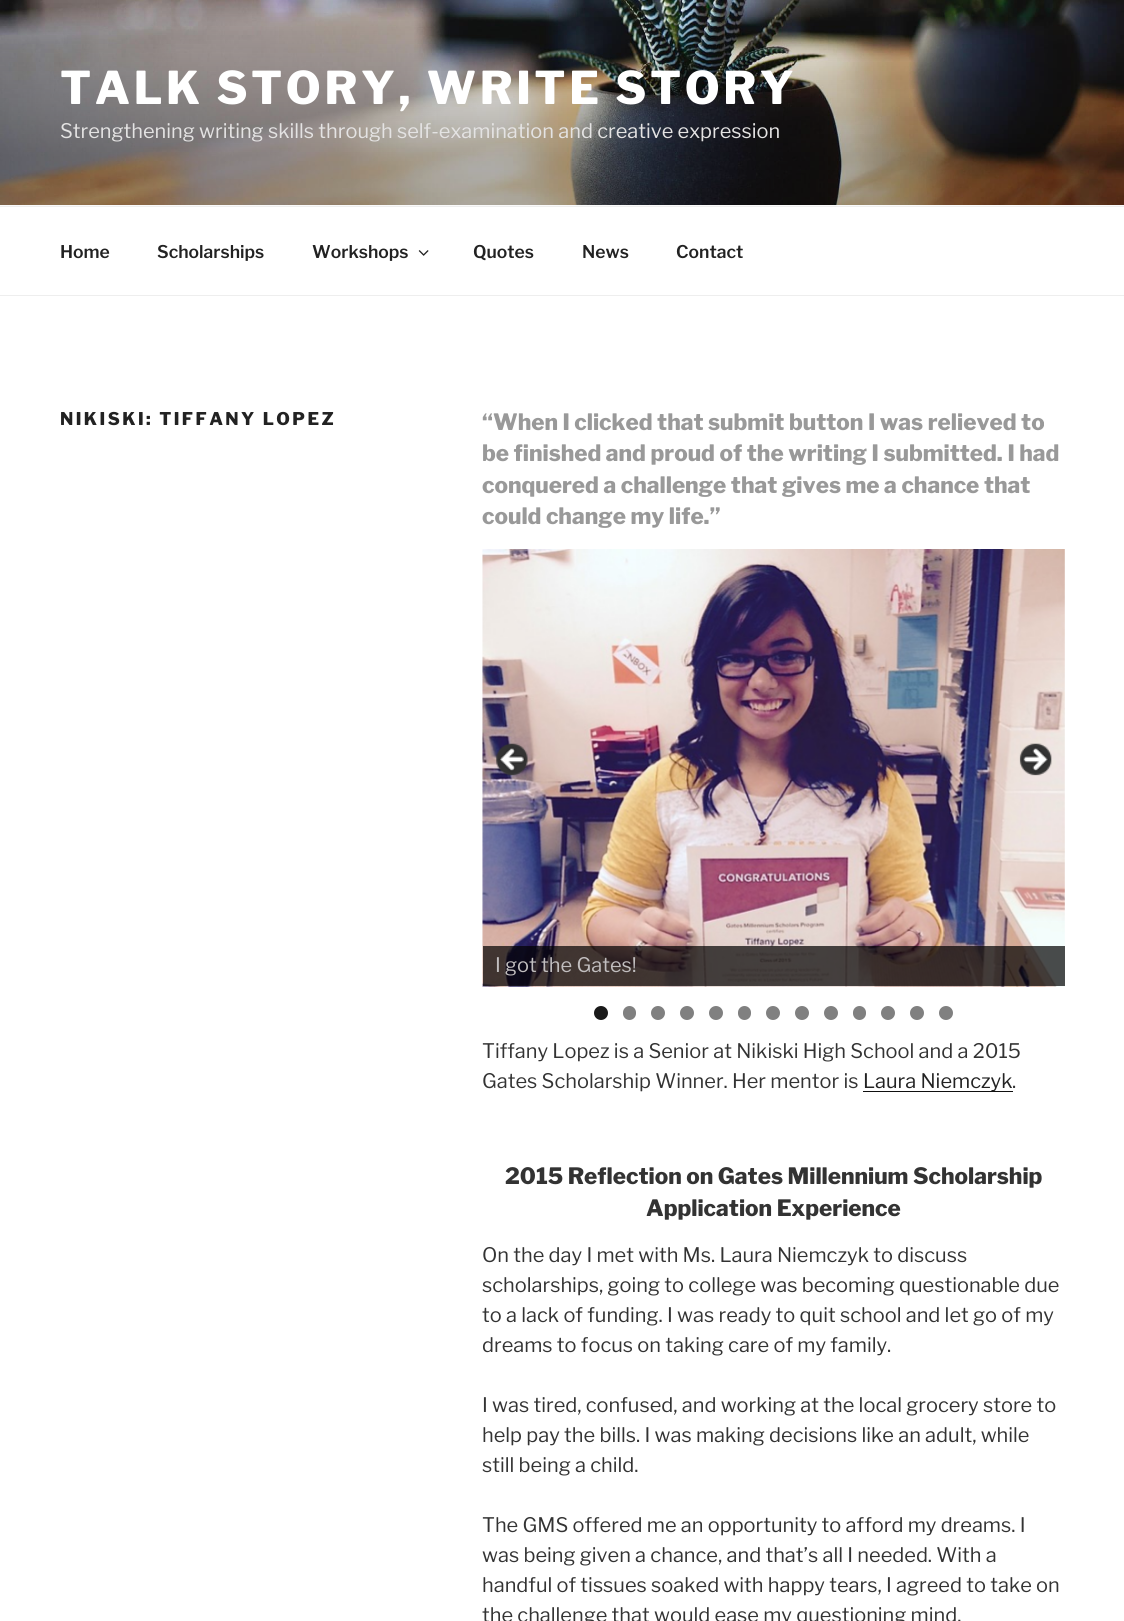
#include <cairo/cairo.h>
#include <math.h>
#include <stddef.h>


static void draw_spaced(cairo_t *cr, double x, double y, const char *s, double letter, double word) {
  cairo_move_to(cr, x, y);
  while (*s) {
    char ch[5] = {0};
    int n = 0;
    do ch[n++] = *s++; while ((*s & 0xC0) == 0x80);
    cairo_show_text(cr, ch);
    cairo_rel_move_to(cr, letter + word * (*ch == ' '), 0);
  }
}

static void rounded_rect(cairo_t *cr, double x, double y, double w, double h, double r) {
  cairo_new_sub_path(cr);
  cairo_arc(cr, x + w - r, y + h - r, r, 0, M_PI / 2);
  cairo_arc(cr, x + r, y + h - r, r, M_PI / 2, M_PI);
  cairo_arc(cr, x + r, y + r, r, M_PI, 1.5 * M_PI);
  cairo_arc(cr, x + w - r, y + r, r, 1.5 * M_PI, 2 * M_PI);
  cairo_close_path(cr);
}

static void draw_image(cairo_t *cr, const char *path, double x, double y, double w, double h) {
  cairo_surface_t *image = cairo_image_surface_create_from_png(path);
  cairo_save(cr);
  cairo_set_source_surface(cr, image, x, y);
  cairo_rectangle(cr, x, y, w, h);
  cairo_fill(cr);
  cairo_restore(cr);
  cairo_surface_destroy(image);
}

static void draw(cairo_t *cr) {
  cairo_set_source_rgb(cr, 1, 1, 1);
  cairo_paint(cr);
  cairo_set_source_rgb(cr, 250 / 255.0, 250 / 255.0, 250 / 255.0);
  cairo_rectangle(cr, 0, 205, 1124, 1);
  cairo_fill(cr);
  draw_image(cr, "images/1.png", 0, 0, 1124, 205);
  cairo_set_source_rgb(cr, 238 / 255.0, 238 / 255.0, 238 / 255.0);
  cairo_rectangle(cr, 0, 206, 1124, 1);
  cairo_fill(cr);
  cairo_rectangle(cr, 0, 295, 1124, 1);
  cairo_fill(cr);
  draw_image(cr, "images/2.png", 418, 250, 11, 6);
  draw_image(cr, "images/5.png", 482, 549, 583, 438);
  draw_image(cr, "images/3.png", 496, 743, 32, 33);
  draw_image(cr, "images/4.png", 1019, 743, 33, 33);
  cairo_set_source_rgba(cr, 0, 0, 0, 0.7);
  cairo_rectangle(cr, 483, 946, 582, 40);
  cairo_fill(cr);
  cairo_set_source_rgb(cr, 26 / 255.0, 26 / 255.0, 26 / 255.0);
  cairo_arc(cr, 601, 1013, 7, 0, 2 * M_PI);
  cairo_fill(cr);
  cairo_set_source_rgb(cr, 128 / 255.0, 128 / 255.0, 128 / 255.0);
  rounded_rect(cr, 623, 1006, 13, 14, 6.5);
  cairo_fill(cr);
  cairo_arc(cr, 658, 1013, 7, 0, 2 * M_PI);
  cairo_fill(cr);
  cairo_arc(cr, 687, 1013, 7, 0, 2 * M_PI);
  cairo_fill(cr);
  cairo_arc(cr, 716, 1013, 7, 0, 2 * M_PI);
  cairo_fill(cr);
  rounded_rect(cr, 738, 1006, 13, 14, 6.5);
  cairo_fill(cr);
  cairo_arc(cr, 773, 1013, 7, 0, 2 * M_PI);
  cairo_fill(cr);
  cairo_arc(cr, 802, 1013, 7, 0, 2 * M_PI);
  cairo_fill(cr);
  cairo_arc(cr, 831, 1013, 7, 0, 2 * M_PI);
  cairo_fill(cr);
  rounded_rect(cr, 853, 1006, 13, 14, 6.5);
  cairo_fill(cr);
  cairo_arc(cr, 888, 1013, 7, 0, 2 * M_PI);
  cairo_fill(cr);
  cairo_arc(cr, 917, 1013, 7, 0, 2 * M_PI);
  cairo_fill(cr);
  cairo_arc(cr, 946, 1013, 7, 0, 2 * M_PI);
  cairo_fill(cr);
  cairo_set_source_rgb(cr, 15 / 255.0, 15 / 255.0, 15 / 255.0);
  cairo_rectangle(cr, 863, 1091, 150, 1);
  cairo_fill(cr);
  cairo_select_font_face(cr, "Libre Franklin Thin", CAIRO_FONT_SLANT_NORMAL, CAIRO_FONT_WEIGHT_NORMAL);
  cairo_set_font_size(cr, 45);
  cairo_set_source_rgb(cr, 1, 1, 1);
  draw_spaced(cr, 60, 104, "TALK STORY, WRITE STORY", 3.6, 0);
  cairo_select_font_face(cr, "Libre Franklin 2 Thin", CAIRO_FONT_SLANT_NORMAL, CAIRO_FONT_WEIGHT_NORMAL);
  cairo_set_font_size(cr, 20);
  cairo_set_source_rgb(cr, 228 / 255.0, 227 / 255.0, 227 / 255.0);
  cairo_move_to(cr, 60, 138);
  cairo_show_text(cr, "Strengthening writing skills through self-examination and creative expression");
  cairo_select_font_face(cr, "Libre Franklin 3 Thin", CAIRO_FONT_SLANT_NORMAL, CAIRO_FONT_WEIGHT_NORMAL);
  cairo_set_font_size(cr, 17.5);
  cairo_set_source_rgb(cr, 34 / 255.0, 34 / 255.0, 34 / 255.0);
  cairo_move_to(cr, 60, 258);
  cairo_show_text(cr, "Home");
  cairo_move_to(cr, 157, 258);
  cairo_show_text(cr, "Scholarships");
  cairo_move_to(cr, 312, 258);
  cairo_show_text(cr, "Workshops");
  cairo_move_to(cr, 473, 258);
  cairo_show_text(cr, "Quotes");
  cairo_move_to(cr, 582, 258);
  cairo_show_text(cr, "News");
  cairo_move_to(cr, 676, 258);
  cairo_show_text(cr, "Contact");
  cairo_select_font_face(cr, "Libre Franklin Thin", CAIRO_FONT_SLANT_NORMAL, CAIRO_FONT_WEIGHT_NORMAL);
  draw_spaced(cr, 60, 425, "NIKISKI: TIFFANY LOPEZ", 2.45, 0);
  cairo_set_font_size(cr, 22.5);
  cairo_set_source_rgb(cr, 153 / 255.0, 153 / 255.0, 153 / 255.0);
  cairo_move_to(cr, 482, 430);
  cairo_show_text(cr, "“When I clicked that submit button I was relieved to");
  cairo_move_to(cr, 482, 461);
  cairo_show_text(cr, "be finished and proud of the writing I submitted. I had");
  cairo_move_to(cr, 482, 493);
  cairo_show_text(cr, "conquered a challenge that gives me a chance that");
  cairo_move_to(cr, 482, 524);
  cairo_show_text(cr, "could change my life.”");
  cairo_select_font_face(cr, "Libre Franklin 2 Thin", CAIRO_FONT_SLANT_NORMAL, CAIRO_FONT_WEIGHT_NORMAL);
  cairo_set_font_size(cr, 20);
  cairo_set_source_rgb(cr, 193 / 255.0, 190 / 255.0, 191 / 255.0);
  cairo_move_to(cr, 495, 972);
  cairo_show_text(cr, "I got the Gates!");
  cairo_set_source_rgb(cr, 51 / 255.0, 51 / 255.0, 51 / 255.0);
  cairo_move_to(cr, 482, 1058);
  cairo_show_text(cr, "Tiffany Lopez is a Senior at Nikiski High School and a 2015");
  cairo_move_to(cr, 482, 1088);
  cairo_show_text(cr, "Gates Scholarship Winner. Her mentor is");
  cairo_set_source_rgb(cr, 34 / 255.0, 34 / 255.0, 34 / 255.0);
  cairo_move_to(cr, 863, 1088);
  cairo_show_text(cr, "Laura Niemczyk");
  cairo_set_source_rgb(cr, 51 / 255.0, 51 / 255.0, 51 / 255.0);
  cairo_move_to(cr, 1012, 1088);
  cairo_show_text(cr, ".");
  cairo_select_font_face(cr, "Libre Franklin Thin", CAIRO_FONT_SLANT_NORMAL, CAIRO_FONT_WEIGHT_NORMAL);
  cairo_set_font_size(cr, 22.5);
  cairo_move_to(cr, 505, 1184);
  cairo_show_text(cr, "2015 Reflection on Gates Millennium Scholarship");
  cairo_move_to(cr, 646, 1216);
  cairo_show_text(cr, "Application Experience");
  cairo_select_font_face(cr, "Libre Franklin 2 Thin", CAIRO_FONT_SLANT_NORMAL, CAIRO_FONT_WEIGHT_NORMAL);
  cairo_set_font_size(cr, 20);
  cairo_move_to(cr, 482, 1262);
  cairo_show_text(cr, "On the day I met with Ms. Laura Niemczyk to discuss");
  cairo_move_to(cr, 482, 1292);
  cairo_show_text(cr, "scholarships, going to college was becoming questionable due");
  cairo_move_to(cr, 482, 1322);
  cairo_show_text(cr, "to a lack of funding. I was ready to quit school and let go of my");
  cairo_move_to(cr, 482, 1352);
  cairo_show_text(cr, "dreams to focus on taking care of my family.");
  cairo_move_to(cr, 482, 1412);
  cairo_show_text(cr, "I was tired, confused, and working at the local grocery store to");
  cairo_move_to(cr, 482, 1442);
  cairo_show_text(cr, "help pay the bills. I was making decisions like an adult, while");
  cairo_move_to(cr, 482, 1472);
  cairo_show_text(cr, "still being a child.");
  cairo_move_to(cr, 482, 1532);
  cairo_show_text(cr, "The GMS offered me an opportunity to afford my dreams. I");
  cairo_move_to(cr, 482, 1562);
  cairo_show_text(cr, "was being given a chance, and that’s all I needed. With a");
  cairo_move_to(cr, 482, 1592);
  cairo_show_text(cr, "handful of tissues soaked with happy tears, I agreed to take on");
  cairo_move_to(cr, 482, 1622);
  cairo_show_text(cr, "the challenge that would ease my questioning mind.");
}

int main(void) {
  cairo_surface_t *surface = cairo_image_surface_create(CAIRO_FORMAT_RGB24, 1124, 1621);
  cairo_t *cr = cairo_create(surface);
  cairo_font_options_t *options = cairo_font_options_create();
  cairo_font_options_set_hint_metrics(options, CAIRO_HINT_METRICS_OFF);
  cairo_font_options_set_hint_style(options, CAIRO_HINT_STYLE_NONE);
  cairo_set_font_options(cr, options);
  cairo_set_miter_limit(cr, 4);
  draw(cr);
  cairo_surface_write_to_png(surface, "out.png");
  cairo_font_options_destroy(options);
  cairo_destroy(cr);
  cairo_surface_destroy(surface);
  return 0;
}
